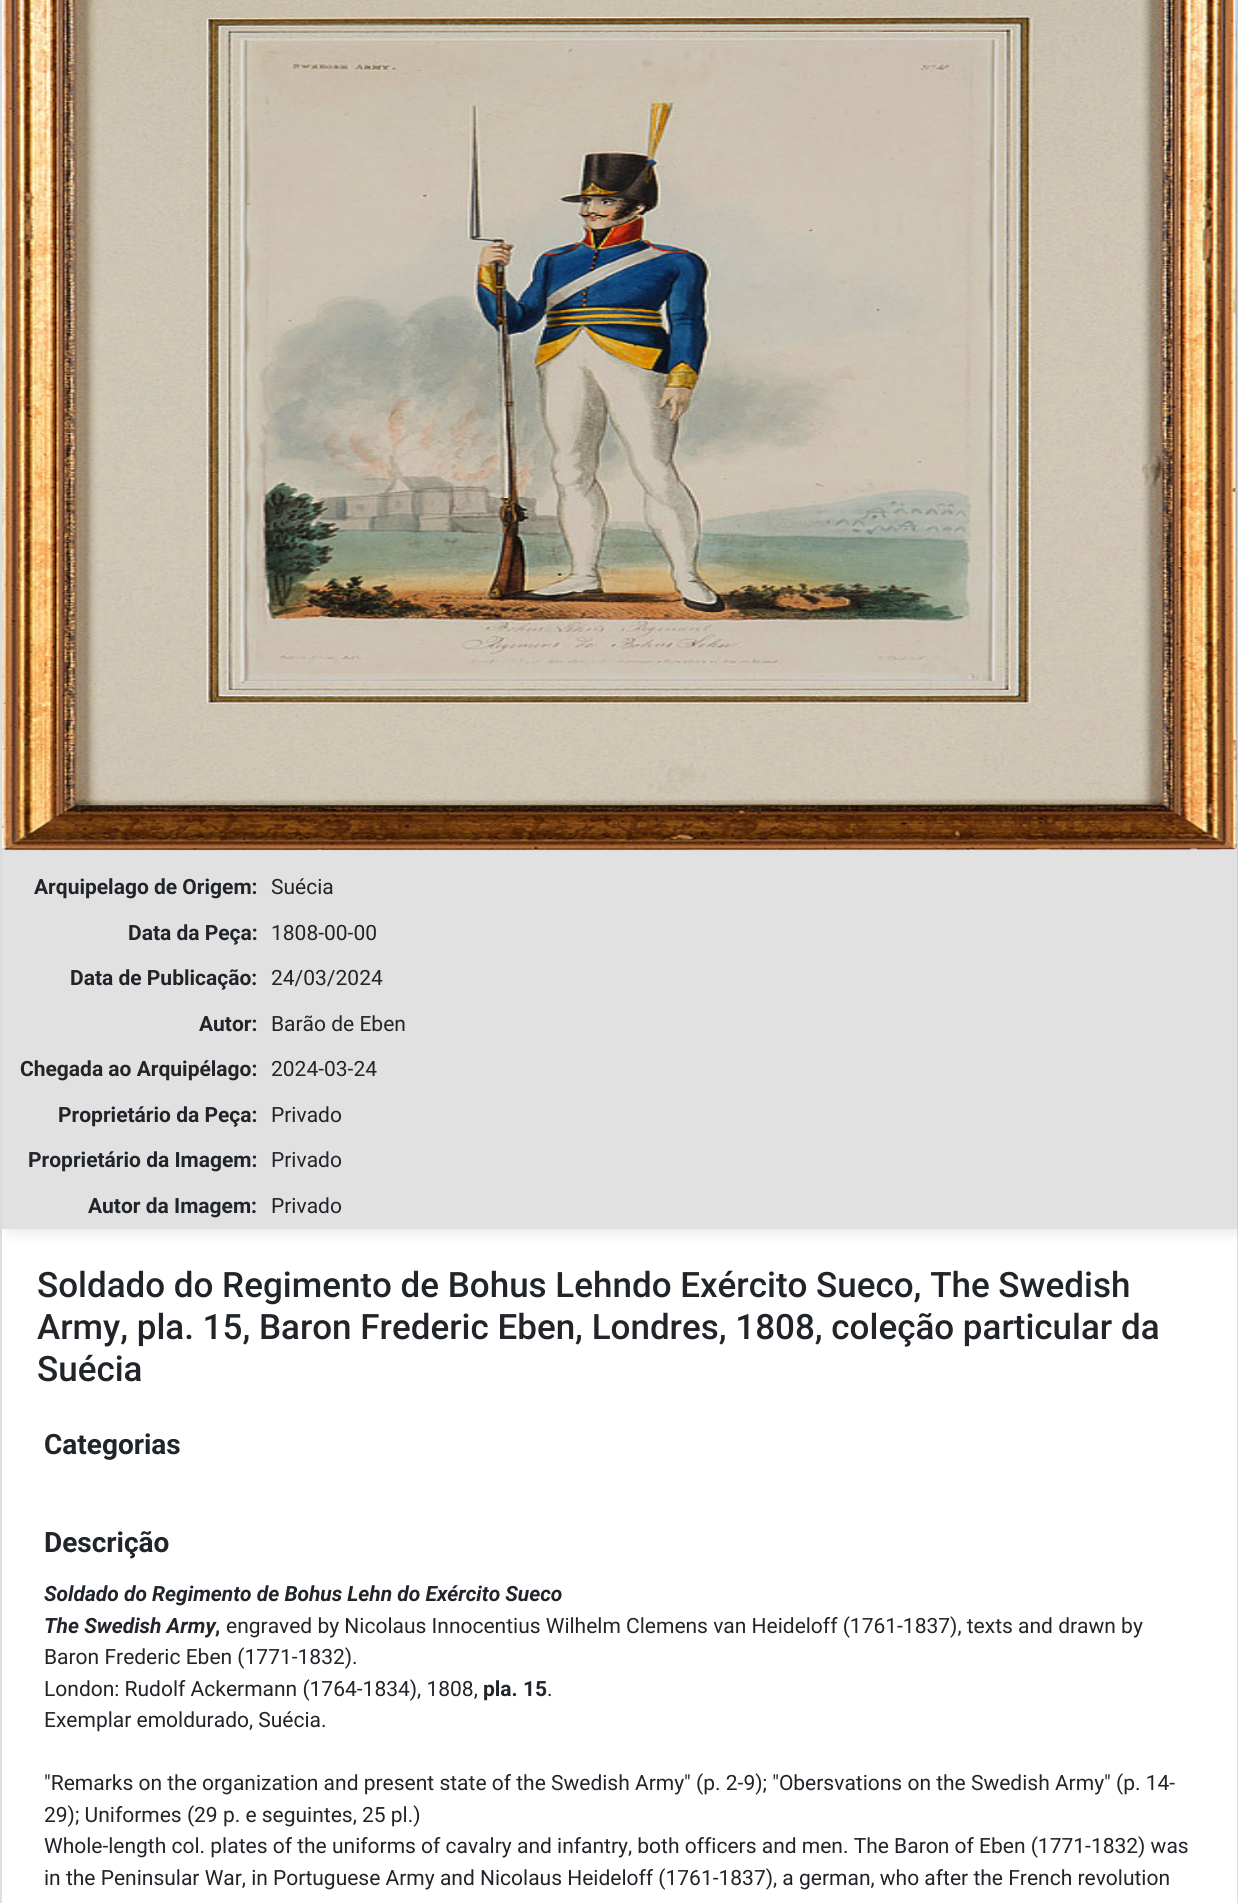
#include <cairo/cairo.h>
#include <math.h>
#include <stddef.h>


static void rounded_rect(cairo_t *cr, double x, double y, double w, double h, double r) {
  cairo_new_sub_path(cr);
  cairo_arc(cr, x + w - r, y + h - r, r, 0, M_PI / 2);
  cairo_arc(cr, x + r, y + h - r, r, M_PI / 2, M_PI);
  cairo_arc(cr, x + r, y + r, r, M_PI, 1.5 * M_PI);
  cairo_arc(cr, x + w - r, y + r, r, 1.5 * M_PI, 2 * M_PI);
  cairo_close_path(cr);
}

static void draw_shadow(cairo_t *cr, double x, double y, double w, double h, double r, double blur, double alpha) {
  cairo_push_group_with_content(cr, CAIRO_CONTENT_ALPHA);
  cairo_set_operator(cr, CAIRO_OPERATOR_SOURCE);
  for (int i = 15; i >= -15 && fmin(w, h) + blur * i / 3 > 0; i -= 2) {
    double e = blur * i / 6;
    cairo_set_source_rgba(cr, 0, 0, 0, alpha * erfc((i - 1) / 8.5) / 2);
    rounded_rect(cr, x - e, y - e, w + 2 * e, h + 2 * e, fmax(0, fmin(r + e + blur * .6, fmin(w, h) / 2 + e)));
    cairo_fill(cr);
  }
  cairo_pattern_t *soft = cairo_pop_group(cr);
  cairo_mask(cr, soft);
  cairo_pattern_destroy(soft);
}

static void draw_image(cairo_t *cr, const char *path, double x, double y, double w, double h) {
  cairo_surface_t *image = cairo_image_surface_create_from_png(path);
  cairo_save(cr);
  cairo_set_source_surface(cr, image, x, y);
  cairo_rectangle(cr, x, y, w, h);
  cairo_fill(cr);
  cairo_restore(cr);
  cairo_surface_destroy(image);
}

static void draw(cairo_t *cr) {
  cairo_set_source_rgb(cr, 1, 1, 1);
  cairo_paint(cr);
  cairo_rectangle(cr, 1, -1, 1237, 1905);
  cairo_set_source_rgb(cr, 223 / 255.0, 223 / 255.0, 223 / 255.0);
  cairo_stroke(cr);
  cairo_save(cr);
  cairo_set_fill_rule(cr, CAIRO_FILL_RULE_EVEN_ODD);
  cairo_new_path(cr);
  cairo_move_to(cr, 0, 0);
  cairo_line_to(cr, 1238, 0);
  cairo_line_to(cr, 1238, 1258);
  cairo_line_to(cr, 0, 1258);
  cairo_close_path(cr);
  cairo_move_to(cr, 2, -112);
  cairo_line_to(cr, 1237, -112);
  cairo_line_to(cr, 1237, 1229);
  cairo_line_to(cr, 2, 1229);
  cairo_close_path(cr);
  cairo_clip(cr);
  cairo_set_source_rgb(cr, 0, 0, 0);
  draw_shadow(cr, 9, -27, 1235, 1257, 0, 9, 0.12);
  cairo_restore(cr);
  cairo_set_source_rgba(cr, 0, 0, 0, 0.12);
  cairo_rectangle(cr, 2, 846, 1235, 383);
  cairo_fill(cr);
  draw_image(cr, "images/1.png", 2, 0, 1236, 851);
  cairo_select_font_face(cr, "Roboto", CAIRO_FONT_SLANT_NORMAL, CAIRO_FONT_WEIGHT_BOLD);
  cairo_set_font_size(cr, 21);
  cairo_set_source_rgb(cr, 33 / 255.0, 37 / 255.0, 41 / 255.0);
  cairo_move_to(cr, 34, 894);
  cairo_show_text(cr, "Arquipelago de Origem:");
  cairo_select_font_face(cr, "Roboto", CAIRO_FONT_SLANT_NORMAL, CAIRO_FONT_WEIGHT_NORMAL);
  cairo_move_to(cr, 271, 894);
  cairo_show_text(cr, "Suécia");
  cairo_select_font_face(cr, "Roboto", CAIRO_FONT_SLANT_NORMAL, CAIRO_FONT_WEIGHT_BOLD);
  cairo_move_to(cr, 128, 940);
  cairo_show_text(cr, "Data da Peça:");
  cairo_select_font_face(cr, "Roboto", CAIRO_FONT_SLANT_NORMAL, CAIRO_FONT_WEIGHT_NORMAL);
  cairo_move_to(cr, 271, 940);
  cairo_show_text(cr, "1808-00-00");
  cairo_select_font_face(cr, "Roboto", CAIRO_FONT_SLANT_NORMAL, CAIRO_FONT_WEIGHT_BOLD);
  cairo_move_to(cr, 70, 985);
  cairo_show_text(cr, "Data de Publicação:");
  cairo_select_font_face(cr, "Roboto", CAIRO_FONT_SLANT_NORMAL, CAIRO_FONT_WEIGHT_NORMAL);
  cairo_move_to(cr, 271, 985);
  cairo_show_text(cr, "24/03/2024");
  cairo_select_font_face(cr, "Roboto", CAIRO_FONT_SLANT_NORMAL, CAIRO_FONT_WEIGHT_BOLD);
  cairo_move_to(cr, 199, 1031);
  cairo_show_text(cr, "Autor:");
  cairo_select_font_face(cr, "Roboto", CAIRO_FONT_SLANT_NORMAL, CAIRO_FONT_WEIGHT_NORMAL);
  cairo_move_to(cr, 271, 1031);
  cairo_show_text(cr, "Barão de Eben");
  cairo_select_font_face(cr, "Roboto", CAIRO_FONT_SLANT_NORMAL, CAIRO_FONT_WEIGHT_BOLD);
  cairo_move_to(cr, 20, 1076);
  cairo_show_text(cr, "Chegada ao Arquipélago:");
  cairo_select_font_face(cr, "Roboto", CAIRO_FONT_SLANT_NORMAL, CAIRO_FONT_WEIGHT_NORMAL);
  cairo_move_to(cr, 271, 1076);
  cairo_show_text(cr, "2024-03-24");
  cairo_select_font_face(cr, "Roboto", CAIRO_FONT_SLANT_NORMAL, CAIRO_FONT_WEIGHT_BOLD);
  cairo_move_to(cr, 58, 1122);
  cairo_show_text(cr, "Proprietário da Peça:");
  cairo_select_font_face(cr, "Roboto", CAIRO_FONT_SLANT_NORMAL, CAIRO_FONT_WEIGHT_NORMAL);
  cairo_move_to(cr, 271, 1122);
  cairo_show_text(cr, "Privado");
  cairo_select_font_face(cr, "Roboto", CAIRO_FONT_SLANT_NORMAL, CAIRO_FONT_WEIGHT_BOLD);
  cairo_move_to(cr, 28, 1167);
  cairo_show_text(cr, "Proprietário da Imagem:");
  cairo_select_font_face(cr, "Roboto", CAIRO_FONT_SLANT_NORMAL, CAIRO_FONT_WEIGHT_NORMAL);
  cairo_move_to(cr, 271, 1167);
  cairo_show_text(cr, "Privado");
  cairo_select_font_face(cr, "Roboto", CAIRO_FONT_SLANT_NORMAL, CAIRO_FONT_WEIGHT_BOLD);
  cairo_move_to(cr, 88, 1213);
  cairo_show_text(cr, "Autor da Imagem:");
  cairo_select_font_face(cr, "Roboto", CAIRO_FONT_SLANT_NORMAL, CAIRO_FONT_WEIGHT_NORMAL);
  cairo_move_to(cr, 271, 1213);
  cairo_show_text(cr, "Privado");
  cairo_select_font_face(cr, "Roboto Medium", CAIRO_FONT_SLANT_NORMAL, CAIRO_FONT_WEIGHT_NORMAL);
  cairo_set_font_size(cr, 35);
  cairo_move_to(cr, 37, 1297);
  cairo_show_text(cr, "Soldado do Regimento de Bohus Lehndo Exército Sueco, The Swedish");
  cairo_move_to(cr, 37, 1339);
  cairo_show_text(cr, "Army, pla. 15, Baron Frederic Eben, Londres, 1808, coleção particular da");
  cairo_move_to(cr, 37, 1381);
  cairo_show_text(cr, "Suécia");
  cairo_select_font_face(cr, "Roboto", CAIRO_FONT_SLANT_NORMAL, CAIRO_FONT_WEIGHT_BOLD);
  cairo_set_font_size(cr, 28);
  cairo_move_to(cr, 44, 1454);
  cairo_show_text(cr, "Categorias");
  cairo_move_to(cr, 44, 1552);
  cairo_show_text(cr, "Descrição");
  cairo_select_font_face(cr, "Roboto", CAIRO_FONT_SLANT_ITALIC, CAIRO_FONT_WEIGHT_BOLD);
  cairo_set_font_size(cr, 21);
  cairo_move_to(cr, 44, 1601);
  cairo_show_text(cr, "Soldado do Regimento de Bohus Lehn do Exército Sueco");
  cairo_move_to(cr, 44, 1633);
  cairo_show_text(cr, "The Swedish Army");
  cairo_select_font_face(cr, "Roboto", CAIRO_FONT_SLANT_NORMAL, CAIRO_FONT_WEIGHT_BOLD);
  cairo_move_to(cr, 215, 1633);
  cairo_show_text(cr, ",");
  cairo_select_font_face(cr, "Roboto", CAIRO_FONT_SLANT_NORMAL, CAIRO_FONT_WEIGHT_NORMAL);
  cairo_move_to(cr, 226, 1633);
  cairo_show_text(cr, "engraved by Nicolaus Innocentius Wilhelm Clemens van Heideloff (1761-1837), texts and drawn by");
  cairo_move_to(cr, 44, 1664);
  cairo_show_text(cr, "Baron Frederic Eben (1771-1832).");
  cairo_move_to(cr, 44, 1696);
  cairo_show_text(cr, "London: Rudolf Ackermann (1764-1834), 1808,");
  cairo_select_font_face(cr, "Roboto", CAIRO_FONT_SLANT_NORMAL, CAIRO_FONT_WEIGHT_BOLD);
  cairo_move_to(cr, 483, 1696);
  cairo_show_text(cr, "pla. 15");
  cairo_select_font_face(cr, "Roboto", CAIRO_FONT_SLANT_NORMAL, CAIRO_FONT_WEIGHT_NORMAL);
  cairo_move_to(cr, 547, 1696);
  cairo_show_text(cr, ".");
  cairo_move_to(cr, 44, 1727);
  cairo_show_text(cr, "Exemplar emoldurado, Suécia.");
  cairo_move_to(cr, 44, 1790);
  cairo_show_text(cr, "\"Remarks on the organization and present state of the Swedish Army\" (p. 2-9); \"Obersvations on the Swedish Army\" (p. 14-");
  cairo_move_to(cr, 44, 1822);
  cairo_show_text(cr, "29); Uniformes (29 p. e seguintes, 25 pl.)");
  cairo_move_to(cr, 44, 1853);
  cairo_show_text(cr, "Whole-length col. plates of the uniforms of cavalry and infantry, both officers and men. The Baron of Eben (1771-1832) was");
  cairo_move_to(cr, 44, 1885);
  cairo_show_text(cr, "in the Peninsular War, in Portuguese Army and Nicolaus Heideloff (1761-1837), a german, who after the French revolution");
}

int main(void) {
  cairo_surface_t *surface = cairo_image_surface_create(CAIRO_FORMAT_RGB24, 1238, 1903);
  cairo_t *cr = cairo_create(surface);
  cairo_font_options_t *options = cairo_font_options_create();
  cairo_font_options_set_hint_metrics(options, CAIRO_HINT_METRICS_OFF);
  cairo_font_options_set_hint_style(options, CAIRO_HINT_STYLE_NONE);
  cairo_set_font_options(cr, options);
  cairo_set_miter_limit(cr, 4);
  draw(cr);
  cairo_surface_write_to_png(surface, "out.png");
  cairo_font_options_destroy(options);
  cairo_destroy(cr);
  cairo_surface_destroy(surface);
  return 0;
}
